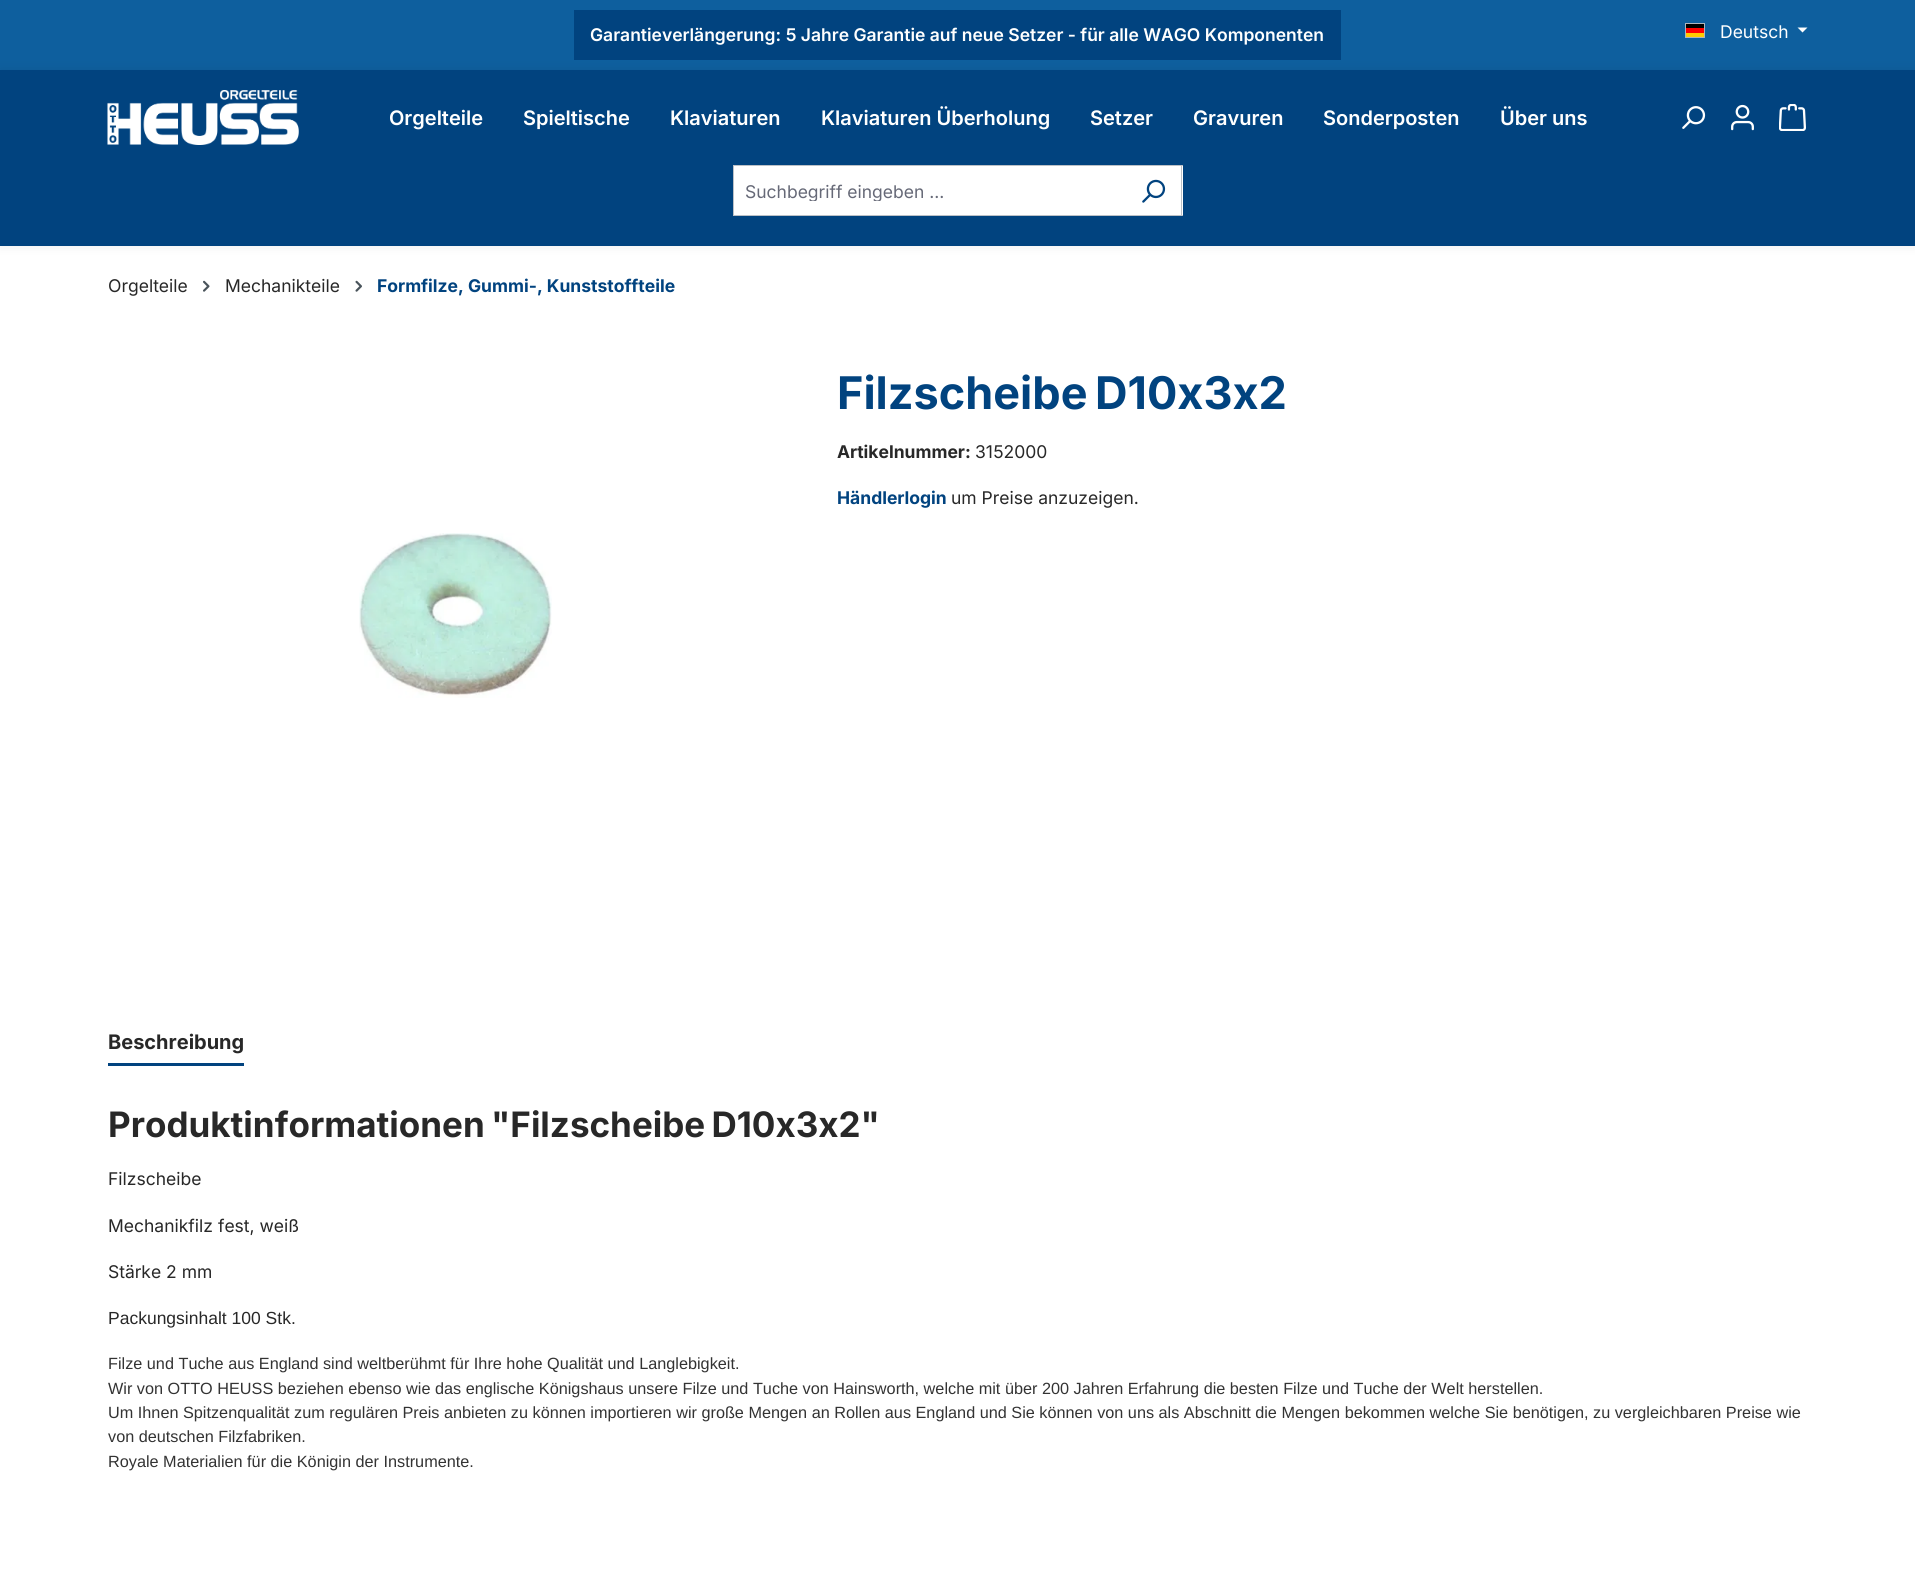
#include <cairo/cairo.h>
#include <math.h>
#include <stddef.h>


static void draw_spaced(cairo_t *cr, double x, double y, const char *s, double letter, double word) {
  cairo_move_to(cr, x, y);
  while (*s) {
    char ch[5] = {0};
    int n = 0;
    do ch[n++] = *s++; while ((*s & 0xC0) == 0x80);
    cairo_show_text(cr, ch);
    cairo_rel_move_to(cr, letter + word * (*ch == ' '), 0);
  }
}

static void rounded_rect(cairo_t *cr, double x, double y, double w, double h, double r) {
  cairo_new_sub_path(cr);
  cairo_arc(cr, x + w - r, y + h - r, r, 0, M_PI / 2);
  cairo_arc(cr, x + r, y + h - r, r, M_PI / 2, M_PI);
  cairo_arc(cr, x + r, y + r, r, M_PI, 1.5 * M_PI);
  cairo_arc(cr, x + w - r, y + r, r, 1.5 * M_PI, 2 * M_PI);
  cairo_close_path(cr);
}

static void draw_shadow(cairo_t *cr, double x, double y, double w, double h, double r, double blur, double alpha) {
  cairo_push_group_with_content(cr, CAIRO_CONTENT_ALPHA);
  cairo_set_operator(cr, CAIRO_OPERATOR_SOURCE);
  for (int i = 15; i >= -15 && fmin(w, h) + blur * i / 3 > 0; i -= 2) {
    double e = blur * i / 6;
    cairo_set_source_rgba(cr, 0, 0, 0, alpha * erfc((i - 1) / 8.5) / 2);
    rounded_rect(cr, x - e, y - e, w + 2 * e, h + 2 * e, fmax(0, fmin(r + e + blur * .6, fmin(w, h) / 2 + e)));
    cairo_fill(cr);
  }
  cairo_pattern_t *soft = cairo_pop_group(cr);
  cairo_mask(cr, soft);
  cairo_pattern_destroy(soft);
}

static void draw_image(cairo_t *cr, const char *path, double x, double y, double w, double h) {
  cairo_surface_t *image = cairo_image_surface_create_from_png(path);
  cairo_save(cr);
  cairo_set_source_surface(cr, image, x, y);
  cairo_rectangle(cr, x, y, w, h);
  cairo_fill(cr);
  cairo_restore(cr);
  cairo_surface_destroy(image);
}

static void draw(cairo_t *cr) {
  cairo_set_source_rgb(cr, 1, 1, 1);
  cairo_paint(cr);
  cairo_set_source_rgb(cr, 14 / 255.0, 95 / 255.0, 158 / 255.0);
  cairo_rectangle(cr, 0, 0, 1915, 70);
  cairo_fill(cr);
  cairo_set_source_rgb(cr, 0, 0, 0);
  draw_shadow(cr, 0, 70, 1915, 176, 0, 6, 0.07);
  cairo_set_source_rgb(cr, 1 / 255.0, 67 / 255.0, 127 / 255.0);
  cairo_rectangle(cr, 574, 10, 767, 50);
  cairo_fill(cr);
  cairo_set_source_rgb(cr, 0, 0, 0);
  cairo_rectangle(cr, 1686, 24, 18, 4);
  cairo_fill(cr);
  cairo_set_source_rgb(cr, 1, 0, 0);
  cairo_rectangle(cr, 1686, 28, 18, 5);
  cairo_fill(cr);
  cairo_set_source_rgb(cr, 1, 204 / 255.0, 0);
  cairo_rectangle(cr, 1686, 33, 18, 4);
  cairo_fill(cr);
  cairo_rectangle(cr, 1685.5, 23.5, 19, 14);
  cairo_set_source_rgb(cr, 173 / 255.0, 181 / 255.0, 189 / 255.0);
  cairo_set_line_width(cr, 1);
  cairo_stroke(cr);
  cairo_set_source_rgb(cr, 1, 1, 1);
  cairo_new_path(cr);
  cairo_move_to(cr, 1797.5, 27.5);
  cairo_line_to(cr, 1807.5, 27.5);
  cairo_line_to(cr, 1802.5, 32.5);
  cairo_close_path(cr);
  cairo_fill(cr);
  cairo_set_source_rgb(cr, 1 / 255.0, 67 / 255.0, 127 / 255.0);
  cairo_rectangle(cr, 0, 70, 1915, 176);
  cairo_fill(cr);
  draw_image(cr, "images/1.png", 107, 90, 192, 55);
  draw_image(cr, "images/2.png", 1682, 106, 24, 23);
  draw_image(cr, "images/3.png", 1731, 104, 23, 27);
  draw_image(cr, "images/4.png", 1779, 104, 27, 27);
  cairo_set_source_rgb(cr, 1, 1, 1);
  cairo_rectangle(cr, 734, 166, 449, 49);
  cairo_fill(cr);
  cairo_set_source_rgb(cr, 188 / 255.0, 193 / 255.0, 199 / 255.0);
  cairo_rectangle(cr, 733, 165, 450, 1);
  cairo_fill(cr);
  cairo_rectangle(cr, 733, 215, 392, 1);
  cairo_fill(cr);
  cairo_rectangle(cr, 733, 165, 1, 51);
  cairo_fill(cr);
  cairo_rectangle(cr, 1181, 165, 1, 51);
  cairo_fill(cr);
  cairo_rectangle(cr, 1124, 215, 59, 1);
  cairo_fill(cr);
  draw_image(cr, "images/5.png", 1142, 179, 24, 24);
  draw_image(cr, "images/6.png", 203, 280, 7, 12);
  draw_image(cr, "images/7.png", 355, 280, 7, 12);
  draw_image(cr, "images/8.png", 359, 533, 193, 165);
  cairo_set_source_rgb(cr, 1 / 255.0, 67 / 255.0, 127 / 255.0);
  cairo_rectangle(cr, 108, 1063, 136, 3);
  cairo_fill(cr);
  cairo_select_font_face(cr, "Inter SemiBold", CAIRO_FONT_SLANT_NORMAL, CAIRO_FONT_WEIGHT_NORMAL);
  cairo_set_font_size(cr, 17.5);
  cairo_set_source_rgb(cr, 1, 1, 1);
  cairo_move_to(cr, 590, 41);
  cairo_show_text(cr, "Garantieverlängerung: 5 Jahre Garantie auf neue Setzer - für alle WAGO Komponenten");
  cairo_select_font_face(cr, "Inter", CAIRO_FONT_SLANT_NORMAL, CAIRO_FONT_WEIGHT_NORMAL);
  cairo_move_to(cr, 1720, 38);
  cairo_show_text(cr, "Deutsch");
  cairo_select_font_face(cr, "Inter SemiBold", CAIRO_FONT_SLANT_NORMAL, CAIRO_FONT_WEIGHT_NORMAL);
  cairo_set_font_size(cr, 20);
  cairo_move_to(cr, 389, 125);
  cairo_show_text(cr, "Orgelteile");
  cairo_move_to(cr, 523, 125);
  cairo_show_text(cr, "Spieltische");
  cairo_move_to(cr, 670, 125);
  cairo_show_text(cr, "Klaviaturen");
  cairo_move_to(cr, 821, 125);
  cairo_show_text(cr, "Klaviaturen Überholung");
  cairo_move_to(cr, 1090, 125);
  cairo_show_text(cr, "Setzer");
  cairo_move_to(cr, 1193, 125);
  cairo_show_text(cr, "Gravuren");
  cairo_move_to(cr, 1323, 125);
  cairo_show_text(cr, "Sonderposten");
  cairo_move_to(cr, 1500, 125);
  cairo_show_text(cr, "Über uns");
  cairo_save(cr);
  cairo_rectangle(cr, 745, 180, 369, 21);
  cairo_clip(cr);
  cairo_select_font_face(cr, "Inter", CAIRO_FONT_SLANT_NORMAL, CAIRO_FONT_WEIGHT_NORMAL);
  cairo_set_font_size(cr, 17.5);
  cairo_set_source_rgb(cr, 102 / 255.0, 105 / 255.0, 119 / 255.0);
  cairo_move_to(cr, 745, 198);
  cairo_show_text(cr, "Suchbegriff eingeben ...");
  cairo_restore(cr);
  cairo_select_font_face(cr, "Inter", CAIRO_FONT_SLANT_NORMAL, CAIRO_FONT_WEIGHT_NORMAL);
  cairo_set_font_size(cr, 17.5);
  cairo_set_source_rgb(cr, 40 / 255.0, 40 / 255.0, 40 / 255.0);
  cairo_move_to(cr, 108, 292);
  cairo_show_text(cr, "Orgelteile");
  cairo_move_to(cr, 225, 292);
  cairo_show_text(cr, "Mechanikteile");
  cairo_select_font_face(cr, "Inter", CAIRO_FONT_SLANT_NORMAL, CAIRO_FONT_WEIGHT_BOLD);
  cairo_set_source_rgb(cr, 1 / 255.0, 67 / 255.0, 127 / 255.0);
  cairo_move_to(cr, 377, 292);
  cairo_show_text(cr, "Formfilze, Gummi-, Kunststoffteile");
  cairo_set_font_size(cr, 45);
  draw_spaced(cr, 837, 409, "Filzscheibe D10x3x2", 0, -3);
  cairo_set_font_size(cr, 17.5);
  cairo_set_source_rgb(cr, 40 / 255.0, 40 / 255.0, 40 / 255.0);
  cairo_move_to(cr, 837, 458);
  cairo_show_text(cr, "Artikelnummer:");
  cairo_select_font_face(cr, "Inter", CAIRO_FONT_SLANT_NORMAL, CAIRO_FONT_WEIGHT_NORMAL);
  cairo_move_to(cr, 975, 458);
  cairo_show_text(cr, "3152000");
  cairo_select_font_face(cr, "Inter", CAIRO_FONT_SLANT_NORMAL, CAIRO_FONT_WEIGHT_BOLD);
  cairo_set_source_rgb(cr, 1 / 255.0, 67 / 255.0, 127 / 255.0);
  cairo_move_to(cr, 837, 504);
  cairo_show_text(cr, "Händlerlogin");
  cairo_select_font_face(cr, "Inter", CAIRO_FONT_SLANT_NORMAL, CAIRO_FONT_WEIGHT_NORMAL);
  cairo_set_source_rgb(cr, 40 / 255.0, 40 / 255.0, 40 / 255.0);
  cairo_move_to(cr, 951, 504);
  cairo_show_text(cr, "um Preise anzuzeigen.");
  cairo_select_font_face(cr, "Inter", CAIRO_FONT_SLANT_NORMAL, CAIRO_FONT_WEIGHT_BOLD);
  cairo_set_font_size(cr, 20);
  cairo_move_to(cr, 108, 1049);
  cairo_show_text(cr, "Beschreibung");
  cairo_set_font_size(cr, 35);
  draw_spaced(cr, 108, 1137, "Produktinformationen \"Filzscheibe D10x3x2\"", 0, -2);
  cairo_select_font_face(cr, "Inter", CAIRO_FONT_SLANT_NORMAL, CAIRO_FONT_WEIGHT_NORMAL);
  cairo_set_font_size(cr, 17.5);
  cairo_move_to(cr, 108, 1185);
  cairo_show_text(cr, "Filzscheibe");
  cairo_move_to(cr, 108, 1232);
  cairo_show_text(cr, "Mechanikfilz fest, weiß");
  cairo_move_to(cr, 108, 1278);
  cairo_show_text(cr, "Stärke 2 mm");
  cairo_select_font_face(cr, "Liberation Sans", CAIRO_FONT_SLANT_NORMAL, CAIRO_FONT_WEIGHT_NORMAL);
  cairo_move_to(cr, 108, 1324);
  cairo_show_text(cr, "Packungsinhalt 100 Stk.");
  cairo_set_font_size(cr, 16.25);
  cairo_set_source_rgb(cr, 51 / 255.0, 51 / 255.0, 51 / 255.0);
  cairo_move_to(cr, 108, 1369);
  cairo_show_text(cr, "Filze und Tuche aus England sind weltberühmt für Ihre hohe Qualität und Langlebigkeit.");
  cairo_move_to(cr, 108, 1394);
  cairo_show_text(cr, "Wir von OTTO HEUSS beziehen ebenso wie das englische Königshaus unsere Filze und Tuche von Hainsworth, welche mit über 200 Jahren Erfahrung die besten Filze und Tuche der Welt herstellen.");
  cairo_move_to(cr, 108, 1418);
  cairo_show_text(cr, "Um Ihnen Spitzenqualität zum regulären Preis anbieten zu können importieren wir große Mengen an Rollen aus England und Sie können von uns als Abschnitt die Mengen bekommen welche Sie benötigen, zu vergleichbaren Preise wie");
  cairo_move_to(cr, 108, 1442);
  cairo_show_text(cr, "von deutschen Filzfabriken.");
  cairo_move_to(cr, 108, 1467);
  cairo_show_text(cr, "Royale Materialien für die Königin der Instrumente.");
}

int main(void) {
  cairo_surface_t *surface = cairo_image_surface_create(CAIRO_FORMAT_RGB24, 1915, 1581);
  cairo_t *cr = cairo_create(surface);
  cairo_font_options_t *options = cairo_font_options_create();
  cairo_font_options_set_hint_metrics(options, CAIRO_HINT_METRICS_OFF);
  cairo_font_options_set_hint_style(options, CAIRO_HINT_STYLE_NONE);
  cairo_set_font_options(cr, options);
  cairo_set_miter_limit(cr, 4);
  draw(cr);
  cairo_surface_write_to_png(surface, "out.png");
  cairo_font_options_destroy(options);
  cairo_destroy(cr);
  cairo_surface_destroy(surface);
  return 0;
}
